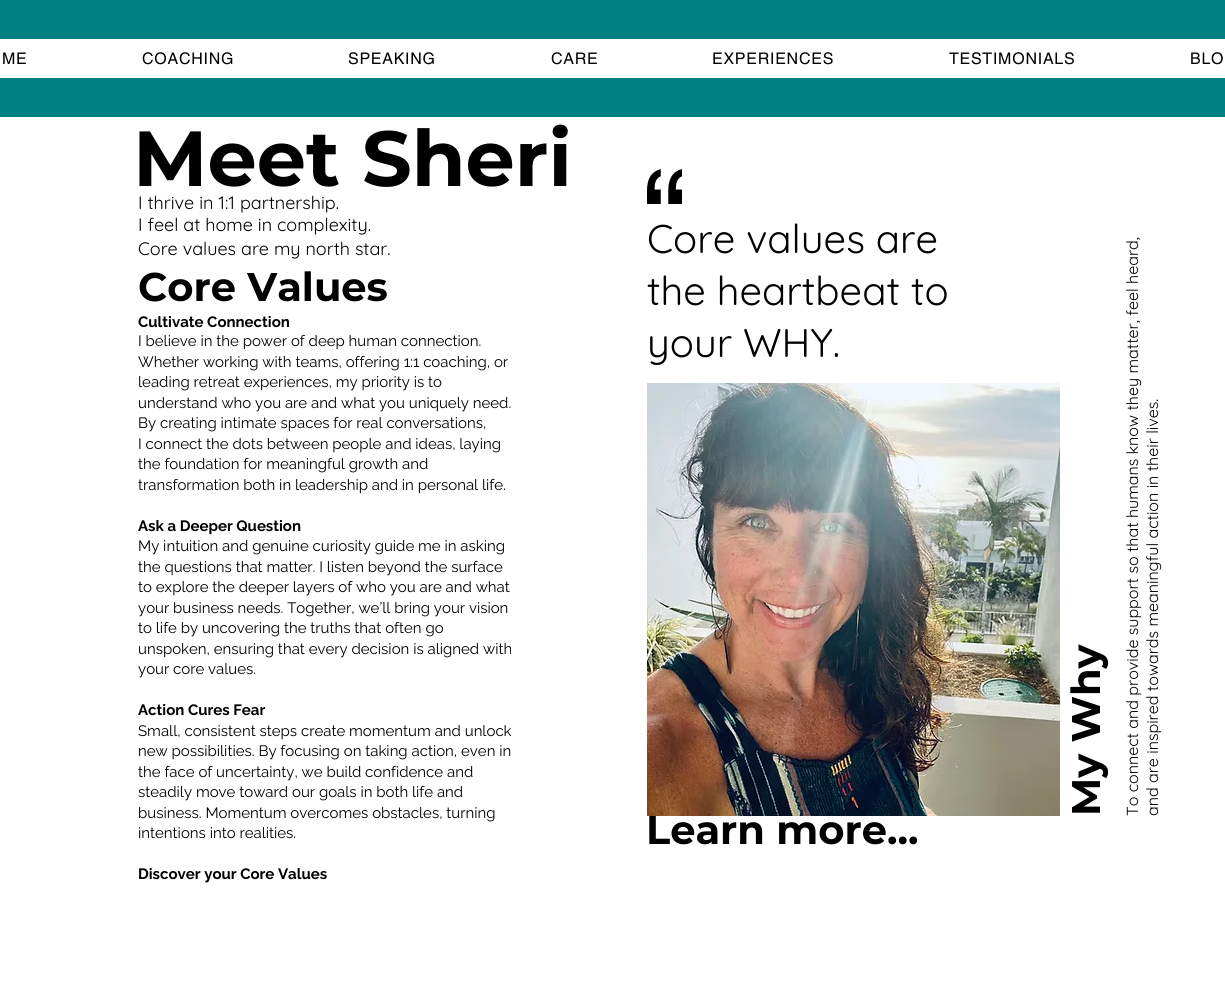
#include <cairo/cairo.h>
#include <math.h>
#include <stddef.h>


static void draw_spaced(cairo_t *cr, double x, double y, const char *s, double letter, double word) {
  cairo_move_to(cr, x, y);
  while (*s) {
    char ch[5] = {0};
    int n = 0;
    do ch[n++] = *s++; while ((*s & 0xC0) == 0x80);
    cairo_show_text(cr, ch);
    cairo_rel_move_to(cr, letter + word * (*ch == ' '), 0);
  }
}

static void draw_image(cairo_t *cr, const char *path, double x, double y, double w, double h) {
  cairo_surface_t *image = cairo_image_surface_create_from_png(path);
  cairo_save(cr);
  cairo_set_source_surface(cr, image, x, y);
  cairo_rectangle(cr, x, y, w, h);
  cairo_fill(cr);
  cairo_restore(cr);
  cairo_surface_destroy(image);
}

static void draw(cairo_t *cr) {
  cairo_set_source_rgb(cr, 1, 1, 1);
  cairo_paint(cr);
  cairo_set_source_rgb(cr, 0, 128 / 255.0, 128 / 255.0);
  cairo_rectangle(cr, 0, 0, 1225, 117);
  cairo_fill(cr);
  cairo_set_source_rgb(cr, 1, 1, 1);
  cairo_rectangle(cr, 0, 39, 1225, 39);
  cairo_fill(cr);
  draw_image(cr, "images/1.png", 647, 169, 35, 35);
  draw_image(cr, "images/2.png", 647, 383, 413, 433);
  cairo_select_font_face(cr, "helvetica", CAIRO_FONT_SLANT_NORMAL, CAIRO_FONT_WEIGHT_NORMAL);
  cairo_set_font_size(cr, 16);
  cairo_set_source_rgb(cr, 0, 0, 0);
  draw_spaced(cr, 2, 64, "ME", 0.75, 0);
  draw_spaced(cr, 142, 64, "COACHING", 0.75, 0);
  draw_spaced(cr, 348, 64, "SPEAKING", 0.75, 0);
  draw_spaced(cr, 551, 64, "CARE", 0.75, 0);
  draw_spaced(cr, 712, 64, "EXPERIENCES", 0.75, 0);
  draw_spaced(cr, 949, 64, "TESTIMONIALS", 0.75, 0);
  draw_spaced(cr, 1190, 64, "BLO", 0.75, 0);
  cairo_select_font_face(cr, "Montserrat", CAIRO_FONT_SLANT_NORMAL, CAIRO_FONT_WEIGHT_BOLD);
  cairo_set_font_size(cr, 78);
  cairo_move_to(cr, 133, 186);
  cairo_show_text(cr, "Meet Sheri");
  cairo_select_font_face(cr, "Quicksand", CAIRO_FONT_SLANT_NORMAL, CAIRO_FONT_WEIGHT_NORMAL);
  cairo_set_font_size(cr, 18);
  cairo_move_to(cr, 138, 209);
  cairo_show_text(cr, "I thrive in 1:1 partnership.");
  cairo_move_to(cr, 138, 231);
  cairo_show_text(cr, "I feel at home in complexity.");
  cairo_move_to(cr, 138, 255);
  cairo_show_text(cr, "Core values are my north star.");
  cairo_select_font_face(cr, "Montserrat", CAIRO_FONT_SLANT_NORMAL, CAIRO_FONT_WEIGHT_BOLD);
  cairo_set_font_size(cr, 40);
  cairo_move_to(cr, 138, 301);
  cairo_show_text(cr, "Core Values");
  cairo_select_font_face(cr, "Raleway", CAIRO_FONT_SLANT_NORMAL, CAIRO_FONT_WEIGHT_BOLD);
  cairo_set_font_size(cr, 15);
  cairo_move_to(cr, 138, 327);
  cairo_show_text(cr, "Cultivate Connection");
  cairo_select_font_face(cr, "Raleway", CAIRO_FONT_SLANT_NORMAL, CAIRO_FONT_WEIGHT_NORMAL);
  cairo_move_to(cr, 138, 346);
  cairo_show_text(cr, "I believe in the power of deep human connection.");
  cairo_move_to(cr, 138, 367);
  cairo_show_text(cr, "Whether working with teams, offering 1:1 coaching, or");
  cairo_move_to(cr, 138, 387);
  cairo_show_text(cr, "leading retreat experiences, my priority is to");
  cairo_move_to(cr, 138, 408);
  cairo_show_text(cr, "understand who you are and what you uniquely need.");
  cairo_move_to(cr, 138, 428);
  cairo_show_text(cr, "By creating intimate spaces for real conversations,");
  cairo_move_to(cr, 138, 449);
  cairo_show_text(cr, "I connect the dots between people and ideas, laying");
  cairo_move_to(cr, 138, 469);
  cairo_show_text(cr, "the foundation for meaningful growth and");
  cairo_move_to(cr, 138, 490);
  cairo_show_text(cr, "transformation both in leadership and in personal life.");
  cairo_select_font_face(cr, "Raleway", CAIRO_FONT_SLANT_NORMAL, CAIRO_FONT_WEIGHT_BOLD);
  cairo_move_to(cr, 138, 531);
  cairo_show_text(cr, "Ask a Deeper Question");
  cairo_select_font_face(cr, "Raleway", CAIRO_FONT_SLANT_NORMAL, CAIRO_FONT_WEIGHT_NORMAL);
  cairo_move_to(cr, 138, 551);
  cairo_show_text(cr, "My intuition and genuine curiosity guide me in asking");
  cairo_move_to(cr, 138, 572);
  cairo_show_text(cr, "the questions that matter. I listen beyond the surface");
  cairo_move_to(cr, 138, 592);
  cairo_show_text(cr, "to explore the deeper layers of who you are and what");
  cairo_move_to(cr, 138, 613);
  cairo_show_text(cr, "your business needs. Together, we’ll bring your vision");
  cairo_move_to(cr, 138, 633);
  cairo_show_text(cr, "to life by uncovering the truths that often go");
  cairo_move_to(cr, 138, 654);
  cairo_show_text(cr, "unspoken, ensuring that every decision is aligned with");
  cairo_move_to(cr, 138, 674);
  cairo_show_text(cr, "your core values.");
  cairo_select_font_face(cr, "Raleway", CAIRO_FONT_SLANT_NORMAL, CAIRO_FONT_WEIGHT_BOLD);
  cairo_move_to(cr, 138, 715);
  cairo_show_text(cr, "Action Cures Fear");
  cairo_select_font_face(cr, "Raleway", CAIRO_FONT_SLANT_NORMAL, CAIRO_FONT_WEIGHT_NORMAL);
  cairo_move_to(cr, 138, 736);
  cairo_show_text(cr, "Small, consistent steps create momentum and unlock");
  cairo_move_to(cr, 138, 756);
  cairo_show_text(cr, "new possibilities. By focusing on taking action, even in");
  cairo_move_to(cr, 138, 777);
  cairo_show_text(cr, "the face of uncertainty, we build confidence and");
  cairo_move_to(cr, 138, 797);
  cairo_show_text(cr, "steadily move toward our goals in both life and");
  cairo_move_to(cr, 138, 818);
  cairo_show_text(cr, "business. Momentum overcomes obstacles, turning");
  cairo_move_to(cr, 138, 838);
  cairo_show_text(cr, "intentions into realities.");
  cairo_select_font_face(cr, "Raleway", CAIRO_FONT_SLANT_NORMAL, CAIRO_FONT_WEIGHT_BOLD);
  cairo_move_to(cr, 138, 879);
  cairo_show_text(cr, "Discover your Core Values");
  cairo_select_font_face(cr, "Montserrat", CAIRO_FONT_SLANT_NORMAL, CAIRO_FONT_WEIGHT_BOLD);
  cairo_set_font_size(cr, 40);
  cairo_move_to(cr, 646, 844);
  cairo_show_text(cr, "Learn more...");
  cairo_select_font_face(cr, "Quicksand", CAIRO_FONT_SLANT_NORMAL, CAIRO_FONT_WEIGHT_NORMAL);
  cairo_move_to(cr, 647, 253);
  cairo_show_text(cr, "Core values are");
  cairo_move_to(cr, 647, 305);
  cairo_show_text(cr, "the heartbeat to");
  cairo_move_to(cr, 647, 357);
  cairo_show_text(cr, "your WHY.");
  cairo_set_font_size(cr, 16);
  cairo_save(cr);
  cairo_translate(cr, 1138, 816);
  cairo_rotate(cr, -90 * M_PI / 180);
  cairo_move_to(cr, 0, 0);
  cairo_show_text(cr, "To connect and provide support so that humans know they matter, feel heard,");
  cairo_restore(cr);
  cairo_save(cr);
  cairo_translate(cr, 1158, 816);
  cairo_rotate(cr, -90 * M_PI / 180);
  cairo_move_to(cr, 0, 0);
  cairo_show_text(cr, "and are inspired towards meaningful action in their lives.");
  cairo_restore(cr);
  cairo_select_font_face(cr, "Montserrat", CAIRO_FONT_SLANT_NORMAL, CAIRO_FONT_WEIGHT_BOLD);
  cairo_set_font_size(cr, 40);
  cairo_save(cr);
  cairo_translate(cr, 1100, 816);
  cairo_rotate(cr, -90 * M_PI / 180);
  cairo_move_to(cr, 0, 0);
  cairo_show_text(cr, "My Why");
  cairo_restore(cr);
}

int main(void) {
  cairo_surface_t *surface = cairo_image_surface_create(CAIRO_FORMAT_RGB24, 1225, 1008);
  cairo_t *cr = cairo_create(surface);
  cairo_font_options_t *options = cairo_font_options_create();
  cairo_font_options_set_hint_metrics(options, CAIRO_HINT_METRICS_OFF);
  cairo_font_options_set_hint_style(options, CAIRO_HINT_STYLE_NONE);
  cairo_set_font_options(cr, options);
  cairo_set_miter_limit(cr, 4);
  draw(cr);
  cairo_surface_write_to_png(surface, "out.png");
  cairo_font_options_destroy(options);
  cairo_destroy(cr);
  cairo_surface_destroy(surface);
  return 0;
}
